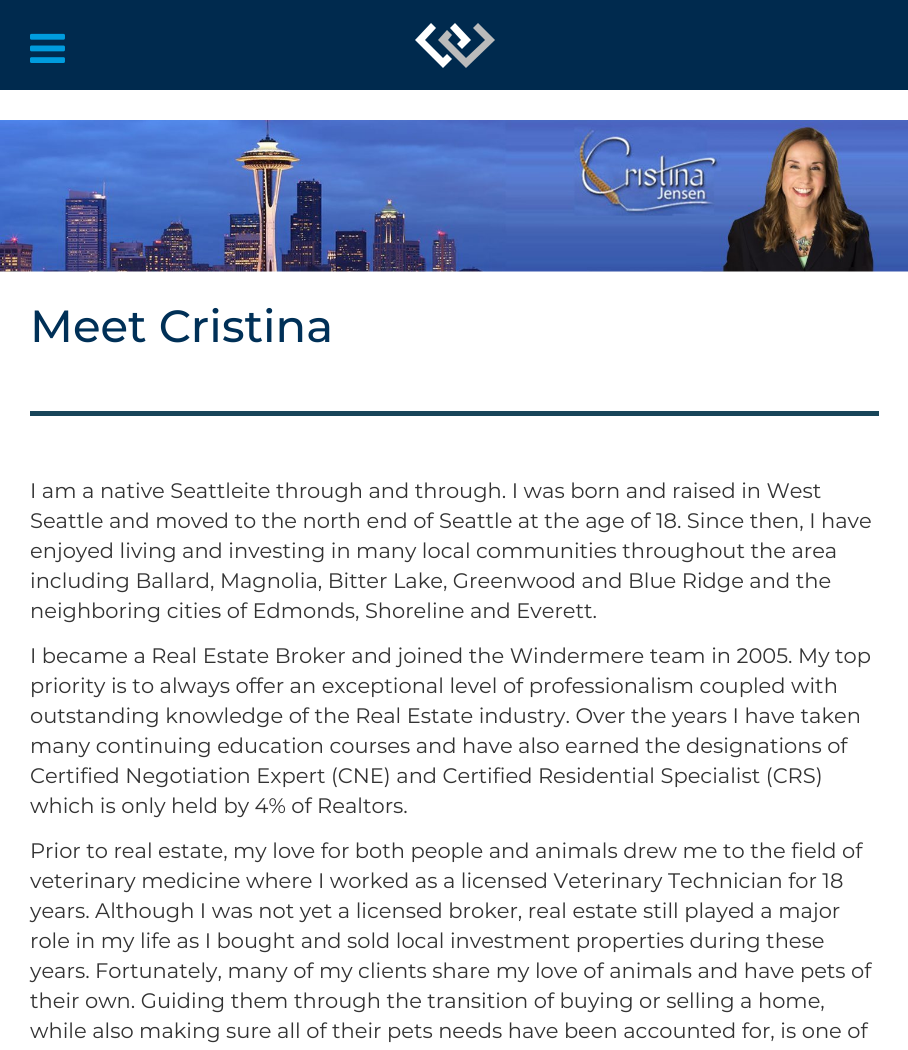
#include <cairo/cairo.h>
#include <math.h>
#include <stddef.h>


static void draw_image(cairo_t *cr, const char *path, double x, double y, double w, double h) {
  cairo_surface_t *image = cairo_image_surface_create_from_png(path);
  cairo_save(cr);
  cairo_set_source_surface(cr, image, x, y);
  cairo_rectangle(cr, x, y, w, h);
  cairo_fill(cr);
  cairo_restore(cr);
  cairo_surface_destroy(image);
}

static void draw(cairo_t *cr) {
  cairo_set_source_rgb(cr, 1, 1, 1);
  cairo_paint(cr);
  cairo_set_source_rgb(cr, 0, 42 / 255.0, 78 / 255.0);
  cairo_rectangle(cr, 0, 0, 908, 90);
  cairo_fill(cr);
  draw_image(cr, "images/1.png", 30, 33, 35, 30);
  cairo_set_source_rgb(cr, 187 / 255.0, 187 / 255.0, 187 / 255.0);
  cairo_new_path(cr);
  cairo_move_to(cr, 495, 40);
  cairo_line_to(cr, 466, 68);
  cairo_line_to(cr, 438, 40);
  cairo_line_to(cr, 447, 30);
  cairo_line_to(cr, 452, 35);
  cairo_line_to(cr, 448, 40);
  cairo_line_to(cr, 466, 58);
  cairo_line_to(cr, 485, 40);
  cairo_line_to(cr, 473, 28);
  cairo_line_to(cr, 478, 23);
  cairo_close_path(cr);
  cairo_fill(cr);
  cairo_set_source_rgb(cr, 1, 1, 1);
  cairo_new_path(cr);
  cairo_move_to(cr, 455, 23);
  cairo_line_to(cr, 450, 28);
  cairo_line_to(cr, 461, 40);
  cairo_line_to(cr, 457, 44);
  cairo_line_to(cr, 462, 49);
  cairo_line_to(cr, 471, 40);
  cairo_close_path(cr);
  cairo_move_to(cr, 447, 54);
  cairo_line_to(cr, 452, 59);
  cairo_line_to(cr, 443, 68);
  cairo_line_to(cr, 415, 40);
  cairo_line_to(cr, 431, 23);
  cairo_line_to(cr, 436, 28);
  cairo_line_to(cr, 425, 40);
  cairo_line_to(cr, 443, 58);
  cairo_close_path(cr);
  cairo_fill(cr);
  draw_image(cr, "images/2.png", 0, 120, 908, 152);
  cairo_set_source_rgb(cr, 24 / 255.0, 69 / 255.0, 89 / 255.0);
  cairo_rectangle(cr, 30, 411, 849, 5);
  cairo_fill(cr);
  cairo_select_font_face(cr, "Montserrat Medium", CAIRO_FONT_SLANT_NORMAL, CAIRO_FONT_WEIGHT_NORMAL);
  cairo_set_font_size(cr, 45);
  cairo_set_source_rgb(cr, 0, 48 / 255.0, 87 / 255.0);
  cairo_move_to(cr, 30, 342);
  cairo_show_text(cr, "Meet Cristina");
  cairo_select_font_face(cr, "Montserrat", CAIRO_FONT_SLANT_NORMAL, CAIRO_FONT_WEIGHT_NORMAL);
  cairo_set_font_size(cr, 21);
  cairo_set_source_rgb(cr, 51 / 255.0, 51 / 255.0, 51 / 255.0);
  cairo_move_to(cr, 30, 498);
  cairo_show_text(cr, "I am a native Seattleite through and through. I was born and raised in West");
  cairo_move_to(cr, 30, 528);
  cairo_show_text(cr, "Seattle and moved to the north end of Seattle at the age of 18. Since then, I have");
  cairo_move_to(cr, 30, 558);
  cairo_show_text(cr, "enjoyed living and investing in many local communities throughout the area");
  cairo_move_to(cr, 30, 588);
  cairo_show_text(cr, "including Ballard, Magnolia, Bitter Lake, Greenwood and Blue Ridge and the");
  cairo_move_to(cr, 30, 618);
  cairo_show_text(cr, "neighboring cities of Edmonds, Shoreline and Everett.");
  cairo_move_to(cr, 30, 663);
  cairo_show_text(cr, "I became a Real Estate Broker and joined the Windermere team in 2005. My top");
  cairo_move_to(cr, 30, 693);
  cairo_show_text(cr, "priority is to always offer an exceptional level of professionalism coupled with");
  cairo_move_to(cr, 30, 723);
  cairo_show_text(cr, "outstanding knowledge of the Real Estate industry. Over the years I have taken");
  cairo_move_to(cr, 30, 753);
  cairo_show_text(cr, "many continuing education courses and have also earned the designations of");
  cairo_move_to(cr, 30, 783);
  cairo_show_text(cr, "Certified Negotiation Expert (CNE) and Certified Residential Specialist (CRS)");
  cairo_move_to(cr, 30, 813);
  cairo_show_text(cr, "which is only held by 4% of Realtors.");
  cairo_move_to(cr, 30, 858);
  cairo_show_text(cr, "Prior to real estate, my love for both people and animals drew me to the field of");
  cairo_move_to(cr, 30, 888);
  cairo_show_text(cr, "veterinary medicine where I worked as a licensed Veterinary Technician for 18");
  cairo_move_to(cr, 30, 918);
  cairo_show_text(cr, "years. Although I was not yet a licensed broker, real estate still played a major");
  cairo_move_to(cr, 30, 948);
  cairo_show_text(cr, "role in my life as I bought and sold local investment properties during these");
  cairo_move_to(cr, 30, 978);
  cairo_show_text(cr, "years. Fortunately, many of my clients share my love of animals and have pets of");
  cairo_move_to(cr, 30, 1008);
  cairo_show_text(cr, "their own. Guiding them through the transition of buying or selling a home,");
  cairo_move_to(cr, 30, 1038);
  cairo_show_text(cr, "while also making sure all of their pets needs have been accounted for, is one of");
}

int main(void) {
  cairo_surface_t *surface = cairo_image_surface_create(CAIRO_FORMAT_RGB24, 908, 1050);
  cairo_t *cr = cairo_create(surface);
  cairo_font_options_t *options = cairo_font_options_create();
  cairo_font_options_set_hint_metrics(options, CAIRO_HINT_METRICS_OFF);
  cairo_font_options_set_hint_style(options, CAIRO_HINT_STYLE_NONE);
  cairo_set_font_options(cr, options);
  cairo_set_miter_limit(cr, 4);
  draw(cr);
  cairo_surface_write_to_png(surface, "out.png");
  cairo_font_options_destroy(options);
  cairo_destroy(cr);
  cairo_surface_destroy(surface);
  return 0;
}
